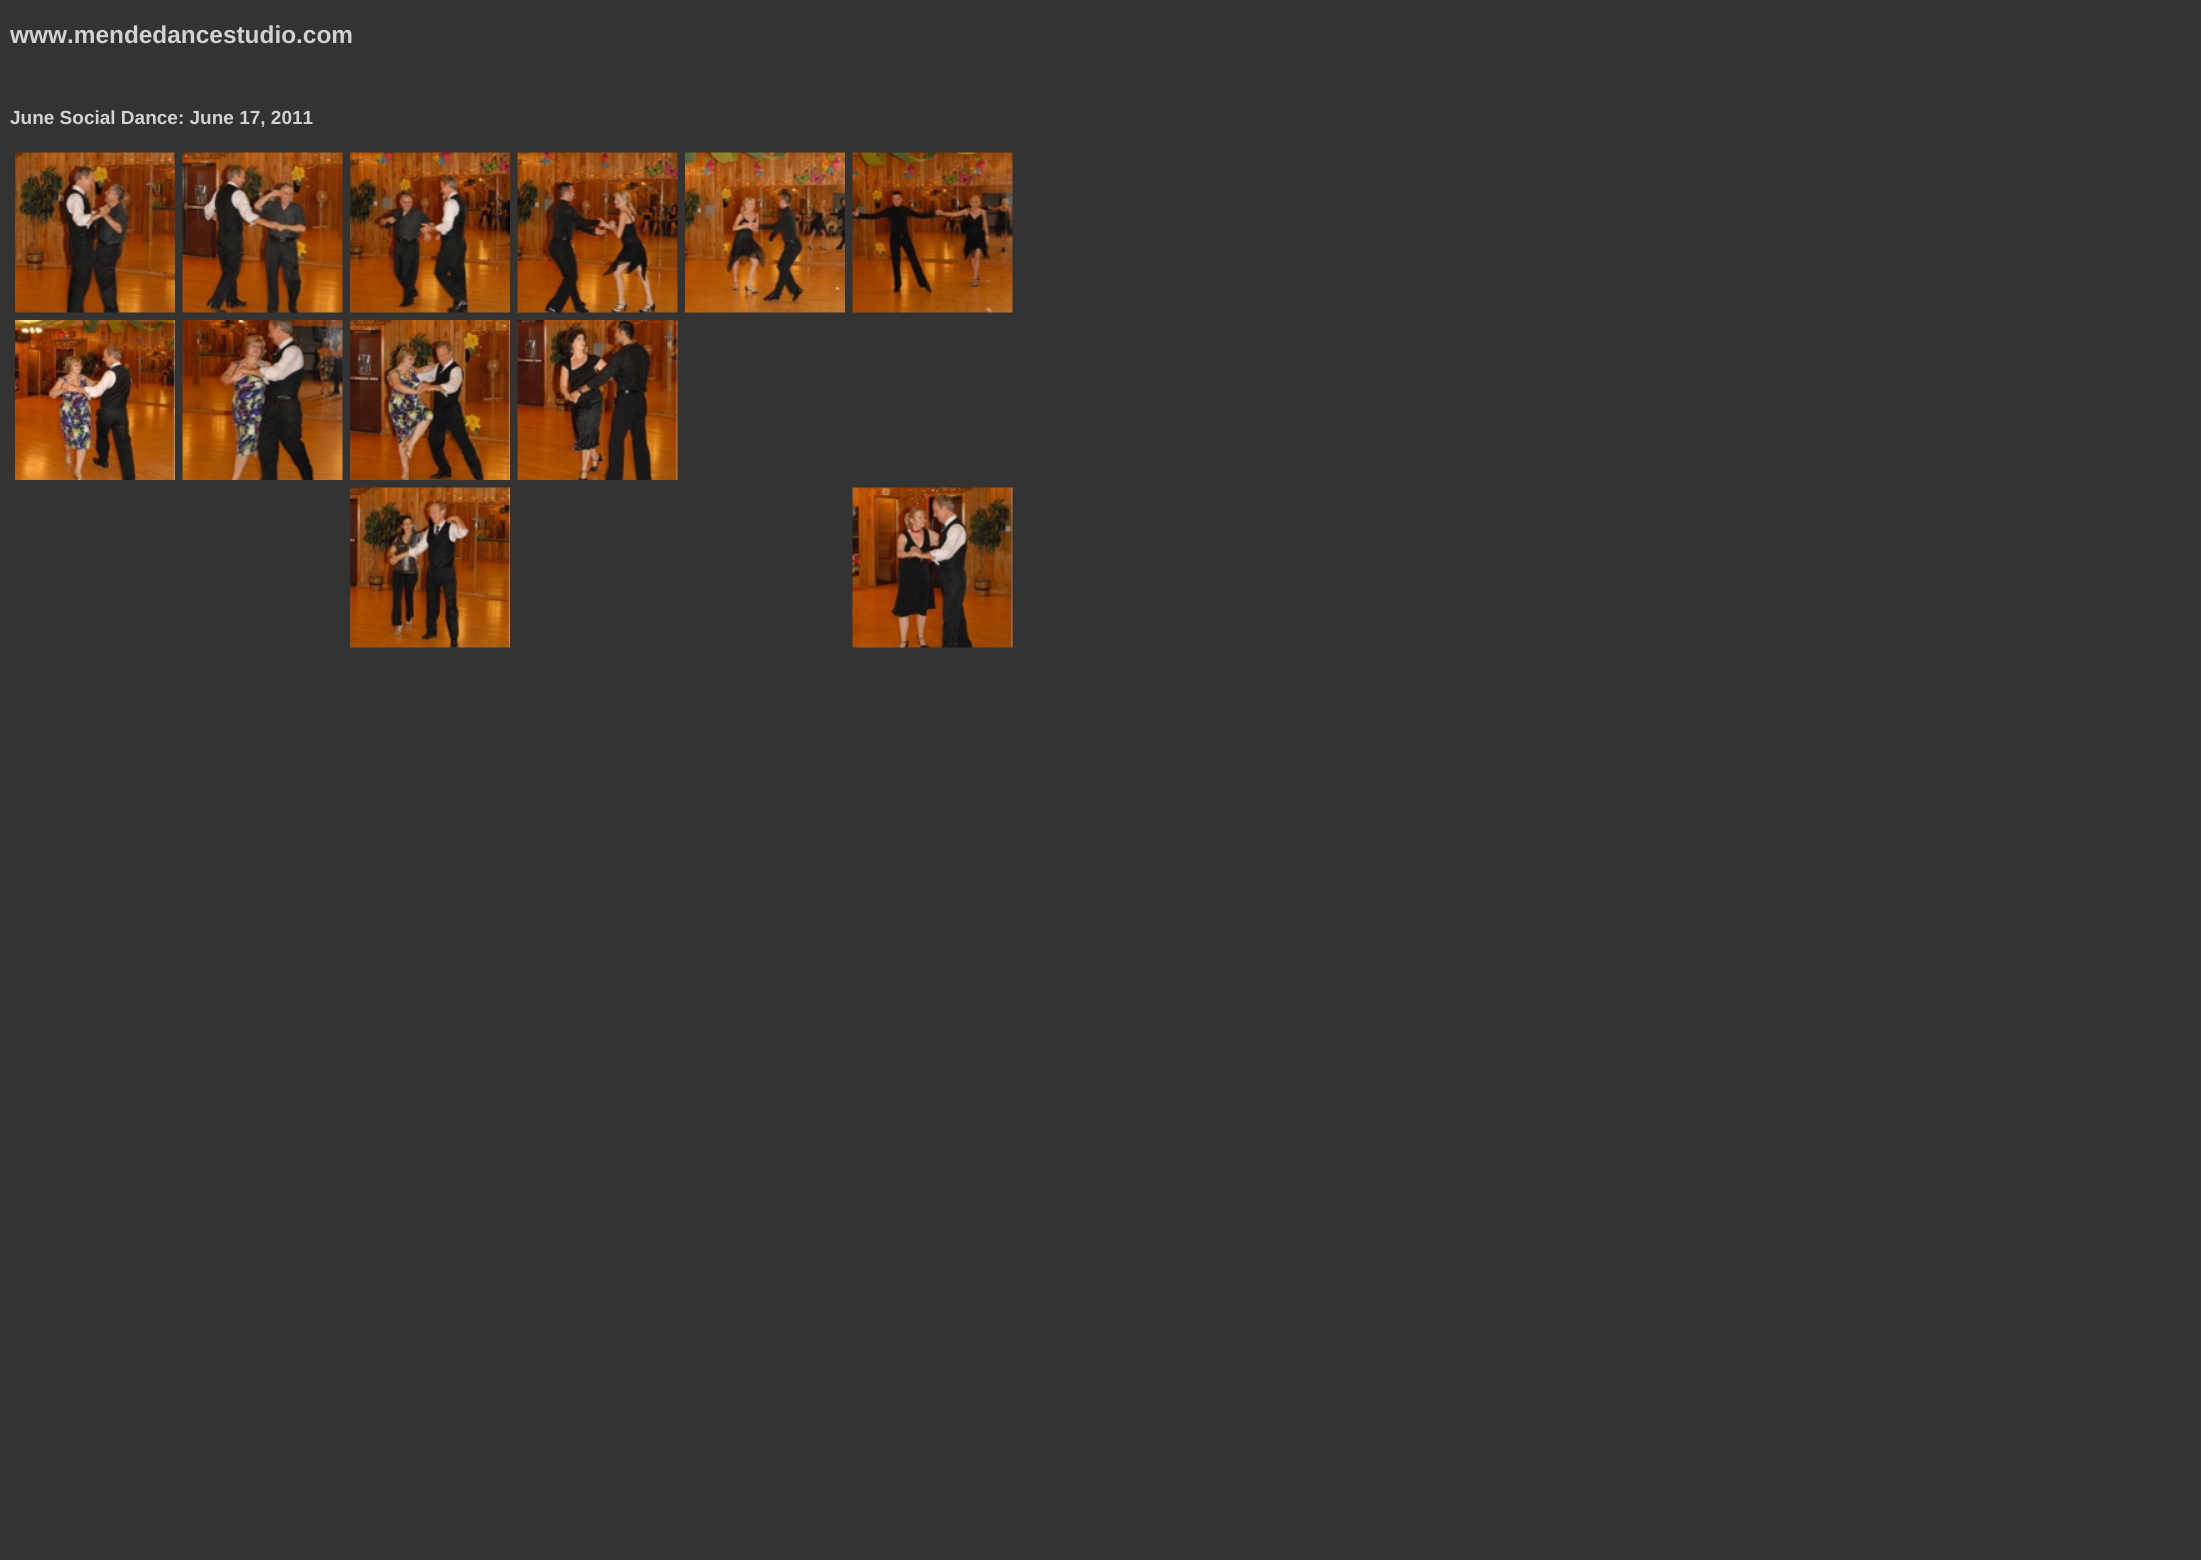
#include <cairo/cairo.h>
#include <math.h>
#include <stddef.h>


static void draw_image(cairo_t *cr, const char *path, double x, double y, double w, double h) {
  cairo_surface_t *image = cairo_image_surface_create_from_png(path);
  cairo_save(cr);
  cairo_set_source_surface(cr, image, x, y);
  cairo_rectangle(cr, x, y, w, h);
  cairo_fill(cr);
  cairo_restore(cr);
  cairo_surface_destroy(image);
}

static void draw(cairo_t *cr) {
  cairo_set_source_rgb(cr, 51 / 255.0, 51 / 255.0, 51 / 255.0);
  cairo_paint(cr);
  draw_image(cr, "images/1.png", 15, 152, 160, 161);
  draw_image(cr, "images/2.png", 182, 152, 161, 161);
  draw_image(cr, "images/3.png", 350, 152, 160, 161);
  draw_image(cr, "images/4.png", 517, 152, 161, 161);
  draw_image(cr, "images/5.png", 685, 152, 160, 161);
  draw_image(cr, "images/6.png", 852, 152, 161, 161);
  draw_image(cr, "images/7.png", 15, 320, 160, 160);
  draw_image(cr, "images/8.png", 182, 320, 161, 160);
  draw_image(cr, "images/9.png", 350, 320, 160, 160);
  draw_image(cr, "images/10.png", 517, 320, 161, 160);
  draw_image(cr, "images/11.png", 350, 487, 160, 161);
  draw_image(cr, "images/12.png", 852, 487, 161, 161);
  cairo_select_font_face(cr, "Liberation Sans", CAIRO_FONT_SLANT_NORMAL, CAIRO_FONT_WEIGHT_BOLD);
  cairo_set_font_size(cr, 24.4);
  cairo_set_source_rgb(cr, 210 / 255.0, 210 / 255.0, 210 / 255.0);
  cairo_move_to(cr, 10, 43);
  cairo_show_text(cr, "www.mendedancestudio.com");
  cairo_set_font_size(cr, 19);
  cairo_move_to(cr, 10, 124);
  cairo_show_text(cr, "June Social Dance: June 17, 2011");
}

int main(void) {
  cairo_surface_t *surface = cairo_image_surface_create(CAIRO_FORMAT_RGB24, 2201, 1560);
  cairo_t *cr = cairo_create(surface);
  cairo_font_options_t *options = cairo_font_options_create();
  cairo_font_options_set_hint_metrics(options, CAIRO_HINT_METRICS_OFF);
  cairo_font_options_set_hint_style(options, CAIRO_HINT_STYLE_NONE);
  cairo_set_font_options(cr, options);
  cairo_set_miter_limit(cr, 4);
  draw(cr);
  cairo_surface_write_to_png(surface, "out.png");
  cairo_font_options_destroy(options);
  cairo_destroy(cr);
  cairo_surface_destroy(surface);
  return 0;
}
